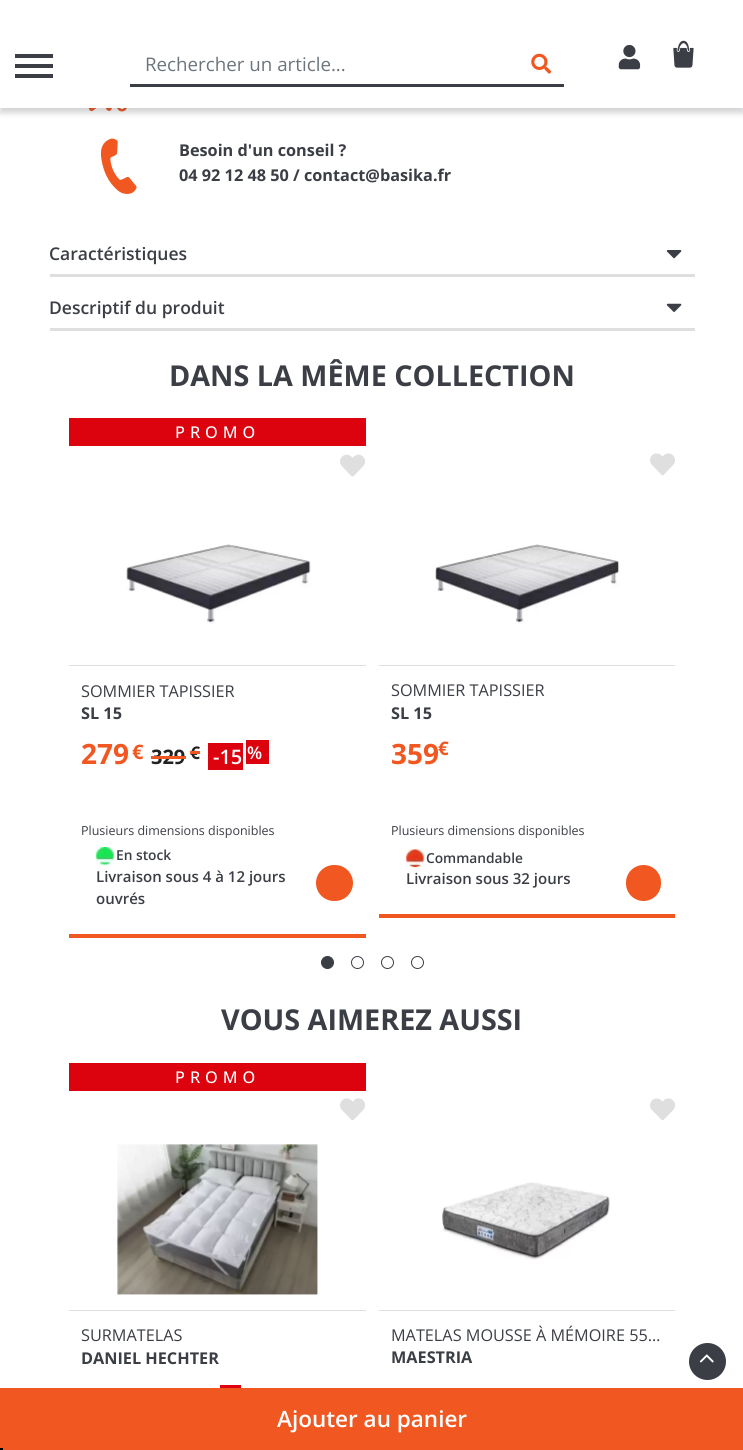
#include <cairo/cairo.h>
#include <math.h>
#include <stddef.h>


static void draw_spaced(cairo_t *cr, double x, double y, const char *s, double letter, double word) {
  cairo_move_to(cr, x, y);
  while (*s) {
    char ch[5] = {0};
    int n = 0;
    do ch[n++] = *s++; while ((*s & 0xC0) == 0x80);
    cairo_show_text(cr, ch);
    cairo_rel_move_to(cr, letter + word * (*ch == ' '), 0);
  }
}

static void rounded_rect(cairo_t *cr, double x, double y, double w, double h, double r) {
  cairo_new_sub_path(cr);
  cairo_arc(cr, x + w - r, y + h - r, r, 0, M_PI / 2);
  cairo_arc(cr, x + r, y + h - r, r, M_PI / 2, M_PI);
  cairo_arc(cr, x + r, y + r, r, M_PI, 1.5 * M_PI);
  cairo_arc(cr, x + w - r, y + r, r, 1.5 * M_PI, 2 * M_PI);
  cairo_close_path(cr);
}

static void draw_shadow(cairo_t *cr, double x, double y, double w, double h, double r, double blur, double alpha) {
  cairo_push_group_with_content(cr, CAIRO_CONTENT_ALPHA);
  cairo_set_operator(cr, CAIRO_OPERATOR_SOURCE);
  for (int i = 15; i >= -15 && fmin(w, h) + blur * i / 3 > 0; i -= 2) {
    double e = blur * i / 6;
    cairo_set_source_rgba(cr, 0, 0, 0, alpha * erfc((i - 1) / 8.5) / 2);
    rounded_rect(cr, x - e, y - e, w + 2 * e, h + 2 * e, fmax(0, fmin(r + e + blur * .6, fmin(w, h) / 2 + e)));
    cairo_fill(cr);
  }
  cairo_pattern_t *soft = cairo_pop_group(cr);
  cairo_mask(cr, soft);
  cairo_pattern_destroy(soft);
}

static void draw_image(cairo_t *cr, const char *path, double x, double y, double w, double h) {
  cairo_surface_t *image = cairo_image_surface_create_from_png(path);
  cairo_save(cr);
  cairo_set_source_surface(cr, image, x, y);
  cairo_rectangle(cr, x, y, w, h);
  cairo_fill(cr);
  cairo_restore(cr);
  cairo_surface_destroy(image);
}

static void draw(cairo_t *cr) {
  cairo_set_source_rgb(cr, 1, 1, 1);
  cairo_paint(cr);
  draw_image(cr, "images/5.png", 88, 108, 45, 4);
  cairo_set_source_rgb(cr, 59 / 255.0, 62 / 255.0, 69 / 255.0);
  draw_shadow(cr, 0, 5, 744, 108, 0, 3, 0.23);
  cairo_set_source_rgb(cr, 1, 1, 1);
  cairo_rectangle(cr, 0, 0, 743, 108);
  cairo_fill(cr);
  cairo_set_source_rgb(cr, 59 / 255.0, 62 / 255.0, 69 / 255.0);
  cairo_rectangle(cr, 15, 54, 38, 4);
  cairo_fill(cr);
  cairo_rectangle(cr, 15, 64, 38, 4);
  cairo_fill(cr);
  cairo_rectangle(cr, 15, 74, 38, 4);
  cairo_fill(cr);
  cairo_rectangle(cr, 130, 84, 434, 3);
  cairo_fill(cr);
  draw_image(cr, "images/1.png", 531, 53, 21, 21);
  draw_image(cr, "images/2.png", 618, 44, 23, 26);
  draw_image(cr, "images/3.png", 673, 40, 21, 28);
  cairo_set_source_rgb(cr, 223 / 255.0, 223 / 255.0, 223 / 255.0);
  cairo_rectangle(cr, 50, 274, 645, 3);
  cairo_fill(cr);
  draw_image(cr, "images/4.png", 666, 250, 16, 9);
  draw_image(cr, "images/6.png", 100, 138, 37, 56);
  cairo_set_source_rgb(cr, 241 / 255.0, 88 / 255.0, 33 / 255.0);
  cairo_rectangle(cr, 0, 1388, 743, 62);
  cairo_fill(cr);
  cairo_set_source_rgb(cr, 223 / 255.0, 223 / 255.0, 223 / 255.0);
  cairo_rectangle(cr, 50, 328, 645, 3);
  cairo_fill(cr);
  draw_image(cr, "images/7.png", 666, 303, 16, 9);
  cairo_set_source_rgb(cr, 241 / 255.0, 88 / 255.0, 33 / 255.0);
  cairo_rectangle(cr, 69, 934, 297, 4);
  cairo_fill(cr);
  cairo_set_source_rgb(cr, 220 / 255.0, 3 / 255.0, 14 / 255.0);
  cairo_rectangle(cr, 69, 418, 297, 28);
  cairo_fill(cr);
  draw_image(cr, "images/8.png", 340, 454, 25, 23);
  draw_image(cr, "images/9.png", 126, 544, 185, 80);
  cairo_set_source_rgb(cr, 223 / 255.0, 223 / 255.0, 223 / 255.0);
  cairo_rectangle(cr, 69, 665, 297, 1);
  cairo_fill(cr);
  cairo_set_source_rgb(cr, 220 / 255.0, 3 / 255.0, 14 / 255.0);
  cairo_rectangle(cr, 208, 743, 35, 27);
  cairo_fill(cr);
  cairo_rectangle(cr, 246, 740, 23, 24);
  cairo_fill(cr);
  draw_image(cr, "images/10.png", 96, 847, 18, 18);
  cairo_set_source_rgb(cr, 241 / 255.0, 88 / 255.0, 33 / 255.0);
  rounded_rect(cr, 316, 865, 37, 36, 18);
  cairo_fill(cr);
  cairo_rectangle(cr, 379, 914, 296, 4);
  cairo_fill(cr);
  draw_image(cr, "images/11.png", 650, 453, 25, 23);
  draw_image(cr, "images/12.png", 435, 544, 185, 80);
  cairo_set_source_rgb(cr, 223 / 255.0, 223 / 255.0, 223 / 255.0);
  cairo_rectangle(cr, 379, 665, 296, 1);
  cairo_fill(cr);
  draw_image(cr, "images/13.png", 406, 849, 19, 19);
  cairo_set_source_rgb(cr, 241 / 255.0, 88 / 255.0, 33 / 255.0);
  rounded_rect(cr, 626, 865, 35, 36, 17.5);
  cairo_fill(cr);
  cairo_set_source_rgb(cr, 59 / 255.0, 62 / 255.0, 69 / 255.0);
  cairo_arc(cr, 327.5, 962.5, 6, 0, 2 * M_PI);
  cairo_fill_preserve(cr);
  cairo_set_line_width(cr, 1);
  cairo_stroke(cr);
  cairo_arc(cr, 357.5, 962.5, 6, 0, 2 * M_PI);
  cairo_stroke(cr);
  cairo_arc(cr, 387.5, 962.5, 6, 0, 2 * M_PI);
  cairo_stroke(cr);
  cairo_arc(cr, 417.5, 962.5, 6, 0, 2 * M_PI);
  cairo_stroke(cr);
  cairo_set_source_rgb(cr, 220 / 255.0, 3 / 255.0, 14 / 255.0);
  cairo_rectangle(cr, 69, 1063, 297, 28);
  cairo_fill(cr);
  draw_image(cr, "images/11.png", 340, 1098, 25, 23);
  draw_image(cr, "images/14.png", 117, 1144, 201, 151);
  cairo_set_source_rgb(cr, 223 / 255.0, 223 / 255.0, 223 / 255.0);
  cairo_rectangle(cr, 69, 1310, 297, 1);
  cairo_fill(cr);
  cairo_set_source_rgb(cr, 220 / 255.0, 3 / 255.0, 14 / 255.0);
  cairo_rectangle(cr, 220, 1385, 21, 3);
  cairo_fill(cr);
  draw_image(cr, "images/11.png", 650, 1098, 25, 23);
  draw_image(cr, "images/15.png", 442, 1182, 168, 78);
  cairo_set_source_rgb(cr, 223 / 255.0, 223 / 255.0, 223 / 255.0);
  cairo_rectangle(cr, 379, 1310, 296, 1);
  cairo_fill(cr);
  cairo_set_source_rgb(cr, 59 / 255.0, 62 / 255.0, 69 / 255.0);
  cairo_arc(cr, 707.5, 1361.5, 18.5, 0, 2 * M_PI);
  cairo_fill(cr);
  draw_image(cr, "images/16.png", 699, 1354, 15, 9);
  cairo_set_source_rgb(cr, 0, 0, 0);
  cairo_rectangle(cr, 0, 1448, 3, 2);
  cairo_fill(cr);
  cairo_select_font_face(cr, "Open Sans", CAIRO_FONT_SLANT_NORMAL, CAIRO_FONT_WEIGHT_NORMAL);
  cairo_set_font_size(cr, 18.75);
  cairo_set_source_rgb(cr, 108 / 255.0, 117 / 255.0, 125 / 255.0);
  cairo_move_to(cr, 145, 71);
  cairo_show_text(cr, "Rechercher un article...");
  cairo_select_font_face(cr, "Open Sans SemiBold", CAIRO_FONT_SLANT_NORMAL, CAIRO_FONT_WEIGHT_NORMAL);
  cairo_set_font_size(cr, 17.5);
  cairo_set_source_rgb(cr, 59 / 255.0, 62 / 255.0, 69 / 255.0);
  cairo_move_to(cr, 49, 260);
  cairo_show_text(cr, "Caractéristiques");
  cairo_select_font_face(cr, "Open Sans", CAIRO_FONT_SLANT_NORMAL, CAIRO_FONT_WEIGHT_BOLD);
  cairo_set_font_size(cr, 16.25);
  cairo_move_to(cr, 179, 156);
  cairo_show_text(cr, "Besoin d'un conseil ?");
  cairo_move_to(cr, 179, 181);
  cairo_show_text(cr, "04 92 12 48 50 / contact@basika.fr");
  cairo_select_font_face(cr, "Open Sans SemiBold", CAIRO_FONT_SLANT_NORMAL, CAIRO_FONT_WEIGHT_NORMAL);
  cairo_set_font_size(cr, 22.5);
  cairo_set_source_rgb(cr, 1, 1, 1);
  cairo_move_to(cr, 277, 1427);
  cairo_show_text(cr, "Ajouter au panier");
  cairo_set_font_size(cr, 17.5);
  cairo_set_source_rgb(cr, 59 / 255.0, 62 / 255.0, 69 / 255.0);
  cairo_move_to(cr, 49, 314);
  cairo_show_text(cr, "Descriptif du produit");
  cairo_select_font_face(cr, "Open Sans", CAIRO_FONT_SLANT_NORMAL, CAIRO_FONT_WEIGHT_BOLD);
  cairo_set_font_size(cr, 28.75);
  cairo_move_to(cr, 169, 386);
  cairo_show_text(cr, "DANS LA MÊME COLLECTION");
  cairo_select_font_face(cr, "Open Sans Medium", CAIRO_FONT_SLANT_NORMAL, CAIRO_FONT_WEIGHT_NORMAL);
  cairo_set_font_size(cr, 16.25);
  cairo_set_source_rgb(cr, 1, 1, 1);
  draw_spaced(cr, 175, 438, "PROMO", 5, 0);
  cairo_select_font_face(cr, "Open Sans", CAIRO_FONT_SLANT_NORMAL, CAIRO_FONT_WEIGHT_NORMAL);
  cairo_set_source_rgb(cr, 59 / 255.0, 62 / 255.0, 69 / 255.0);
  cairo_move_to(cr, 81, 697);
  cairo_show_text(cr, "SOMMIER TAPISSIER");
  cairo_select_font_face(cr, "Open Sans", CAIRO_FONT_SLANT_NORMAL, CAIRO_FONT_WEIGHT_BOLD);
  cairo_move_to(cr, 81, 719);
  cairo_show_text(cr, "SL 15");
  cairo_set_font_size(cr, 28);
  cairo_set_source_rgb(cr, 241 / 255.0, 88 / 255.0, 33 / 255.0);
  cairo_move_to(cr, 81, 764);
  cairo_show_text(cr, "279");
  cairo_set_font_size(cr, 20);
  cairo_move_to(cr, 132, 759);
  cairo_show_text(cr, "€");
  cairo_set_source_rgb(cr, 34 / 255.0, 34 / 255.0, 34 / 255.0);
  cairo_move_to(cr, 151, 764);
  cairo_show_text(cr, "329");
  cairo_set_source_rgb(cr, 241 / 255.0, 88 / 255.0, 33 / 255.0);
  cairo_rectangle(cr, 151, 756, 35, 3);
  cairo_fill(cr);
  cairo_set_font_size(cr, 17.5);
  cairo_set_source_rgb(cr, 34 / 255.0, 34 / 255.0, 34 / 255.0);
  cairo_move_to(cr, 190, 759);
  cairo_show_text(cr, "€");
  cairo_set_source_rgb(cr, 241 / 255.0, 88 / 255.0, 33 / 255.0);
  cairo_rectangle(cr, 190, 751, 10, 3);
  cairo_fill(cr);
  cairo_select_font_face(cr, "Open Sans SemiBold", CAIRO_FONT_SLANT_NORMAL, CAIRO_FONT_WEIGHT_NORMAL);
  cairo_set_font_size(cr, 20);
  cairo_set_source_rgb(cr, 1, 1, 1);
  cairo_move_to(cr, 213, 764);
  cairo_show_text(cr, "-15");
  cairo_set_font_size(cr, 17.5);
  cairo_move_to(cr, 247, 759);
  cairo_show_text(cr, "%");
  cairo_select_font_face(cr, "Open Sans", CAIRO_FONT_SLANT_NORMAL, CAIRO_FONT_WEIGHT_NORMAL);
  cairo_set_font_size(cr, 12.5);
  cairo_set_source_rgb(cr, 59 / 255.0, 62 / 255.0, 69 / 255.0);
  cairo_move_to(cr, 81, 835);
  cairo_show_text(cr, "Plusieurs dimensions disponibles");
  cairo_select_font_face(cr, "Open Sans SemiBold", CAIRO_FONT_SLANT_NORMAL, CAIRO_FONT_WEIGHT_NORMAL);
  cairo_set_font_size(cr, 13.75);
  cairo_move_to(cr, 116, 860);
  cairo_show_text(cr, "En stock");
  cairo_set_font_size(cr, 15);
  cairo_move_to(cr, 96, 882);
  cairo_show_text(cr, "Livraison sous 4 à 12 jours");
  cairo_move_to(cr, 96, 904);
  cairo_show_text(cr, "ouvrés");
  cairo_select_font_face(cr, "Open Sans", CAIRO_FONT_SLANT_NORMAL, CAIRO_FONT_WEIGHT_NORMAL);
  cairo_set_font_size(cr, 16.25);
  cairo_move_to(cr, 391, 696);
  cairo_show_text(cr, "SOMMIER TAPISSIER");
  cairo_select_font_face(cr, "Open Sans", CAIRO_FONT_SLANT_NORMAL, CAIRO_FONT_WEIGHT_BOLD);
  cairo_move_to(cr, 391, 719);
  cairo_show_text(cr, "SL 15");
  cairo_set_font_size(cr, 28);
  cairo_set_source_rgb(cr, 241 / 255.0, 88 / 255.0, 33 / 255.0);
  cairo_move_to(cr, 391, 764);
  cairo_show_text(cr, "359");
  cairo_set_font_size(cr, 18.75);
  cairo_move_to(cr, 438, 755);
  cairo_show_text(cr, "€");
  cairo_select_font_face(cr, "Open Sans", CAIRO_FONT_SLANT_NORMAL, CAIRO_FONT_WEIGHT_NORMAL);
  cairo_set_font_size(cr, 12.5);
  cairo_set_source_rgb(cr, 59 / 255.0, 62 / 255.0, 69 / 255.0);
  cairo_move_to(cr, 391, 835);
  cairo_show_text(cr, "Plusieurs dimensions disponibles");
  cairo_select_font_face(cr, "Open Sans SemiBold", CAIRO_FONT_SLANT_NORMAL, CAIRO_FONT_WEIGHT_NORMAL);
  cairo_set_font_size(cr, 13.75);
  cairo_move_to(cr, 426, 863);
  cairo_show_text(cr, "Commandable");
  cairo_set_font_size(cr, 15);
  cairo_move_to(cr, 406, 884);
  cairo_show_text(cr, "Livraison sous 32 jours");
  cairo_select_font_face(cr, "Open Sans", CAIRO_FONT_SLANT_NORMAL, CAIRO_FONT_WEIGHT_BOLD);
  cairo_set_font_size(cr, 28.75);
  cairo_move_to(cr, 221, 1030);
  cairo_show_text(cr, "VOUS AIMEREZ AUSSI");
  cairo_select_font_face(cr, "Open Sans Medium", CAIRO_FONT_SLANT_NORMAL, CAIRO_FONT_WEIGHT_NORMAL);
  cairo_set_font_size(cr, 16.25);
  cairo_set_source_rgb(cr, 1, 1, 1);
  draw_spaced(cr, 175, 1083, "PROMO", 5, 0);
  cairo_select_font_face(cr, "Open Sans", CAIRO_FONT_SLANT_NORMAL, CAIRO_FONT_WEIGHT_NORMAL);
  cairo_set_source_rgb(cr, 59 / 255.0, 62 / 255.0, 69 / 255.0);
  cairo_move_to(cr, 81, 1341);
  cairo_show_text(cr, "SURMATELAS");
  cairo_select_font_face(cr, "Open Sans", CAIRO_FONT_SLANT_NORMAL, CAIRO_FONT_WEIGHT_BOLD);
  cairo_move_to(cr, 81, 1364);
  cairo_show_text(cr, "DANIEL HECHTER");
  cairo_select_font_face(cr, "Open Sans", CAIRO_FONT_SLANT_NORMAL, CAIRO_FONT_WEIGHT_NORMAL);
  cairo_move_to(cr, 391, 1341);
  cairo_show_text(cr, "MATELAS MOUSSE À MÉMOIRE 55…");
  cairo_select_font_face(cr, "Open Sans", CAIRO_FONT_SLANT_NORMAL, CAIRO_FONT_WEIGHT_BOLD);
  cairo_move_to(cr, 391, 1363);
  cairo_show_text(cr, "MAESTRIA");
}

int main(void) {
  cairo_surface_t *surface = cairo_image_surface_create(CAIRO_FORMAT_RGB24, 743, 1450);
  cairo_t *cr = cairo_create(surface);
  cairo_font_options_t *options = cairo_font_options_create();
  cairo_font_options_set_hint_metrics(options, CAIRO_HINT_METRICS_OFF);
  cairo_font_options_set_hint_style(options, CAIRO_HINT_STYLE_NONE);
  cairo_set_font_options(cr, options);
  cairo_set_miter_limit(cr, 4);
  draw(cr);
  cairo_surface_write_to_png(surface, "out.png");
  cairo_font_options_destroy(options);
  cairo_destroy(cr);
  cairo_surface_destroy(surface);
  return 0;
}
